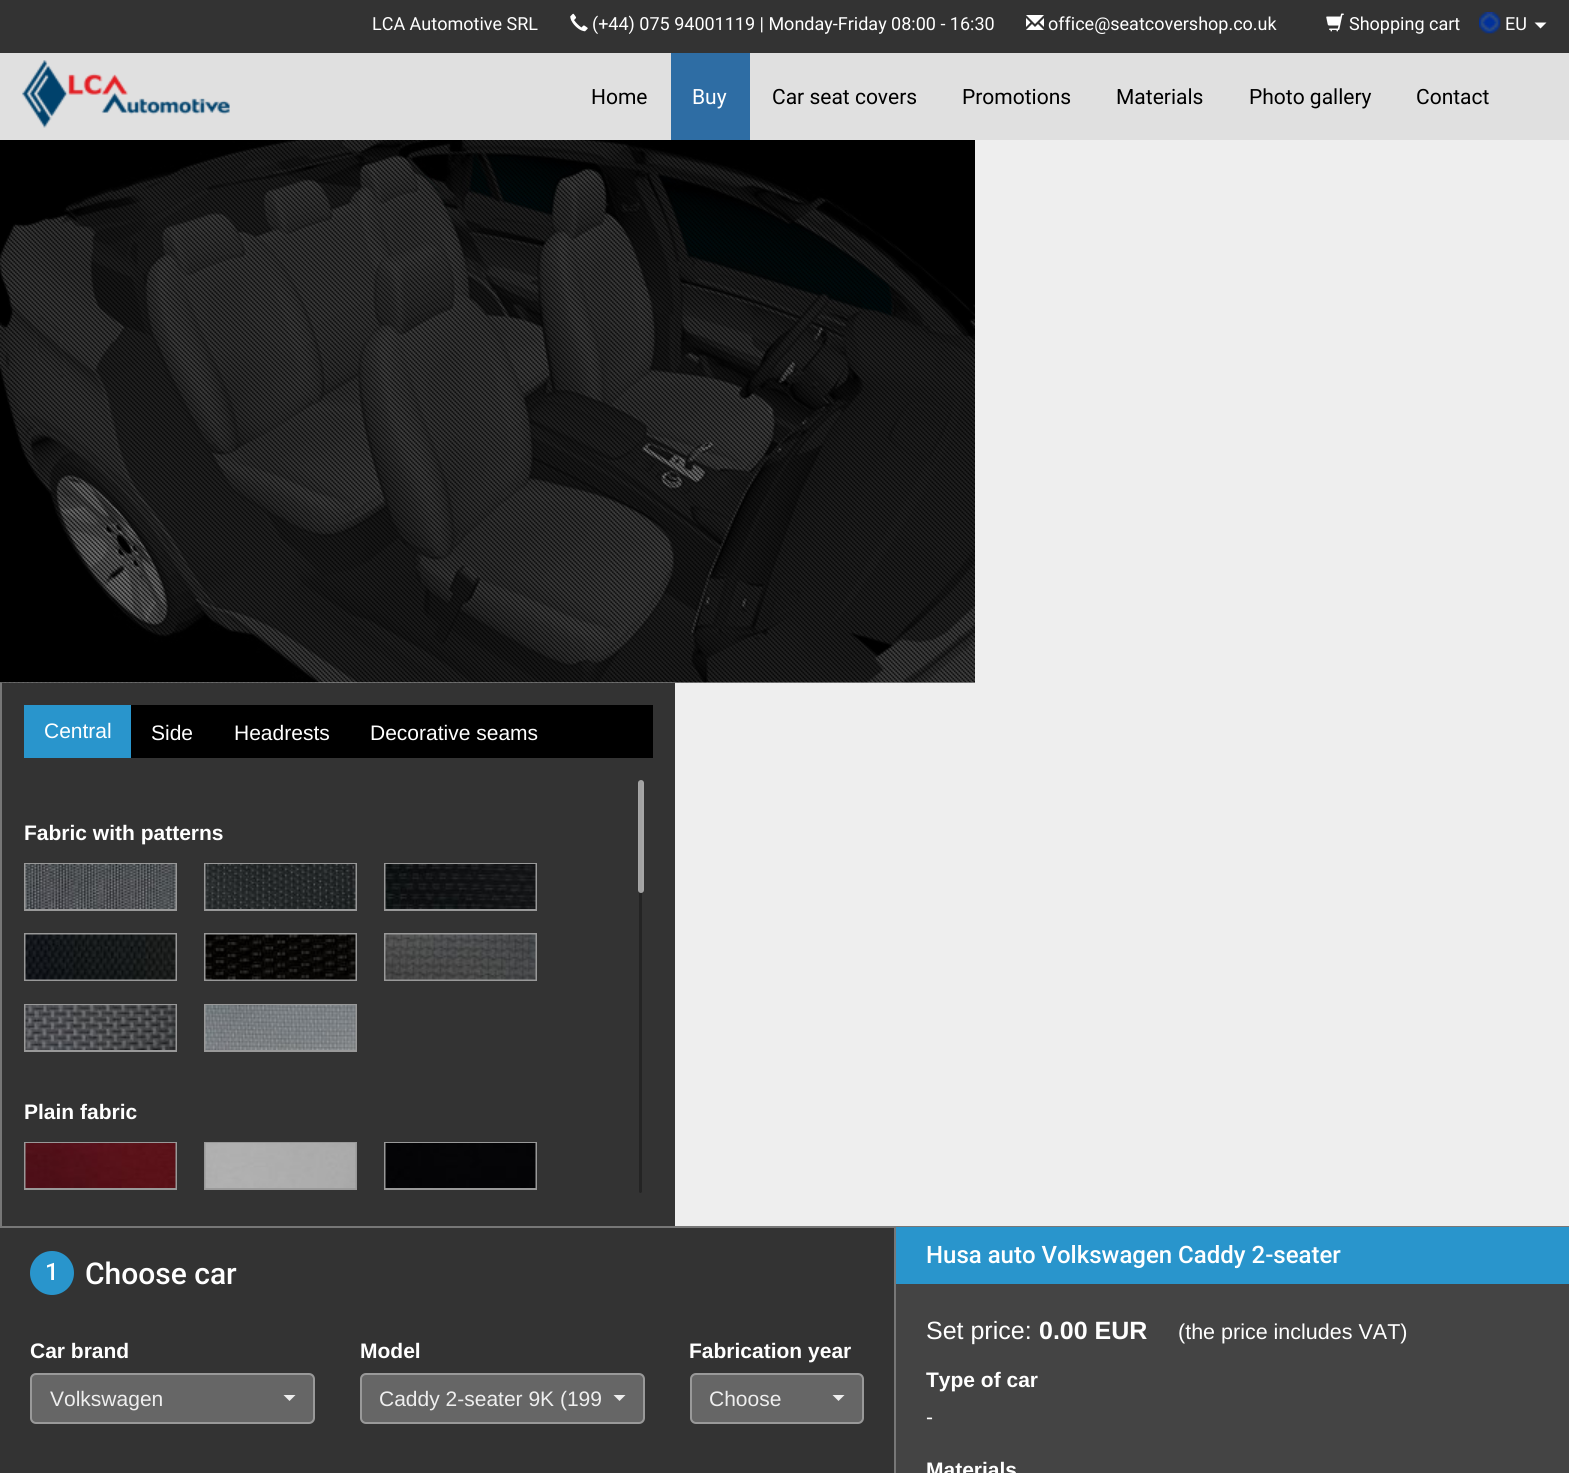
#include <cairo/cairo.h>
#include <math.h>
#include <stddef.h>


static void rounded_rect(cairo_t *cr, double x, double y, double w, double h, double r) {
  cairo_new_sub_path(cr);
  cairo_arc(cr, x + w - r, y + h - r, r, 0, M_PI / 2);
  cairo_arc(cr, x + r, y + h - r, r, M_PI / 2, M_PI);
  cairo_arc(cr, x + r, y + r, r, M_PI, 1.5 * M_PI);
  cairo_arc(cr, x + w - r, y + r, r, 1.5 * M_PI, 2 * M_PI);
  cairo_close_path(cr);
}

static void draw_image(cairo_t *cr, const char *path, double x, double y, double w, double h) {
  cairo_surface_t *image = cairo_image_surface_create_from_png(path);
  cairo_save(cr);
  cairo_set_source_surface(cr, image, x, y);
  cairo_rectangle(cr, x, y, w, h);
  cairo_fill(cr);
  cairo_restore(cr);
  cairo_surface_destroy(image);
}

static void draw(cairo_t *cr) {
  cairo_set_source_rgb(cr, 238 / 255.0, 238 / 255.0, 238 / 255.0);
  cairo_paint(cr);
  cairo_set_source_rgb(cr, 143 / 255.0, 143 / 255.0, 143 / 255.0);
  cairo_rectangle(cr, 0, 682, 975, 1);
  cairo_fill(cr);
  cairo_set_source_rgb(cr, 224 / 255.0, 224 / 255.0, 224 / 255.0);
  cairo_rectangle(cr, 0, 53, 1569, 87);
  cairo_fill(cr);
  cairo_set_source_rgb(cr, 51 / 255.0, 51 / 255.0, 51 / 255.0);
  cairo_rectangle(cr, 0, 0, 1569, 53);
  cairo_fill(cr);
  draw_image(cr, "images/1.png", 570, 13, 18, 19);
  draw_image(cr, "images/2.png", 1026, 15, 18, 15);
  draw_image(cr, "images/3.png", 1326, 13, 18, 19);
  draw_image(cr, "images/4.png", 1479, 12, 22, 22);
  cairo_set_source_rgb(cr, 1, 1, 1);
  cairo_new_path(cr);
  cairo_move_to(cr, 1534.5, 22.5);
  cairo_line_to(cr, 1546.5, 22.5);
  cairo_line_to(cr, 1540.5, 28.5);
  cairo_close_path(cr);
  cairo_fill(cr);
  draw_image(cr, "images/5.png", 22, 60, 208, 68);
  cairo_set_source_rgb(cr, 46 / 255.0, 109 / 255.0, 164 / 255.0);
  cairo_rectangle(cr, 671, 53, 79, 87);
  cairo_fill(cr);
  draw_image(cr, "images/6.png", 0, 140, 975, 543);
  draw_image(cr, "images/7.png", 0, 140, 975, 543);
  cairo_set_source_rgb(cr, 51 / 255.0, 51 / 255.0, 51 / 255.0);
  cairo_rectangle(cr, 2, 683, 673, 543);
  cairo_fill(cr);
  cairo_set_source_rgb(cr, 119 / 255.0, 119 / 255.0, 119 / 255.0);
  cairo_rectangle(cr, 0, 683, 2, 543);
  cairo_fill(cr);
  cairo_set_source_rgb(cr, 0, 0, 0);
  cairo_rectangle(cr, 131, 705, 522, 53);
  cairo_fill(cr);
  cairo_set_source_rgb(cr, 41 / 255.0, 149 / 255.0, 204 / 255.0);
  cairo_rectangle(cr, 24, 705, 107, 53);
  cairo_fill(cr);
  cairo_rectangle(cr, 25, 864, 151, 46);
  cairo_set_source_rgb(cr, 153 / 255.0, 153 / 255.0, 153 / 255.0);
  cairo_stroke(cr);
  draw_image(cr, "images/8.png", 25, 864, 151, 45);
  cairo_rectangle(cr, 205, 864, 151, 46);
  cairo_stroke(cr);
  draw_image(cr, "images/9.png", 205, 864, 151, 45);
  cairo_rectangle(cr, 385, 864, 151, 46);
  cairo_stroke(cr);
  draw_image(cr, "images/10.png", 385, 864, 151, 45);
  cairo_rectangle(cr, 25, 934, 151, 46);
  cairo_stroke(cr);
  draw_image(cr, "images/11.png", 25, 934, 151, 46);
  cairo_rectangle(cr, 205, 934, 151, 46);
  cairo_stroke(cr);
  draw_image(cr, "images/12.png", 205, 934, 151, 46);
  cairo_rectangle(cr, 385, 934, 151, 46);
  cairo_stroke(cr);
  draw_image(cr, "images/13.png", 385, 934, 151, 46);
  cairo_rectangle(cr, 25, 1005, 151, 46);
  cairo_stroke(cr);
  draw_image(cr, "images/14.png", 25, 1005, 151, 45);
  cairo_rectangle(cr, 205, 1005, 151, 46);
  cairo_stroke(cr);
  draw_image(cr, "images/15.png", 205, 1005, 151, 45);
  cairo_rectangle(cr, 25, 1143, 151, 46);
  cairo_stroke(cr);
  draw_image(cr, "images/16.png", 25, 1143, 151, 45);
  cairo_rectangle(cr, 205, 1143, 151, 46);
  cairo_stroke(cr);
  draw_image(cr, "images/17.png", 205, 1143, 151, 45);
  cairo_rectangle(cr, 385, 1143, 151, 46);
  cairo_stroke(cr);
  draw_image(cr, "images/18.png", 385, 1143, 151, 45);
  cairo_set_source_rgb(cr, 36 / 255.0, 36 / 255.0, 36 / 255.0);
  rounded_rect(cr, 639, 780, 3, 413, 1.5);
  cairo_fill(cr);
  cairo_set_source_rgba(cr, 204 / 255.0, 204 / 255.0, 204 / 255.0, 0.75);
  rounded_rect(cr, 638, 780, 6, 113, 3);
  cairo_fill(cr);
  cairo_set_source_rgb(cr, 51 / 255.0, 51 / 255.0, 51 / 255.0);
  cairo_rectangle(cr, 0, 1228, 894, 245);
  cairo_fill(cr);
  cairo_set_source_rgb(cr, 119 / 255.0, 119 / 255.0, 119 / 255.0);
  cairo_rectangle(cr, 0, 1226, 1569, 2);
  cairo_fill(cr);
  cairo_set_source_rgb(cr, 41 / 255.0, 149 / 255.0, 204 / 255.0);
  cairo_arc(cr, 52, 1273, 22, 0, 2 * M_PI);
  cairo_fill(cr);
  cairo_set_source_rgb(cr, 102 / 255.0, 102 / 255.0, 102 / 255.0);
  rounded_rect(cr, 31, 1374, 283, 49, 5);
  cairo_fill_preserve(cr);
  cairo_set_source_rgb(cr, 153 / 255.0, 153 / 255.0, 153 / 255.0);
  cairo_stroke(cr);
  cairo_set_source_rgb(cr, 238 / 255.0, 238 / 255.0, 238 / 255.0);
  cairo_new_path(cr);
  cairo_move_to(cr, 283.5, 1395);
  cairo_line_to(cr, 295.5, 1395);
  cairo_line_to(cr, 289.5, 1401);
  cairo_close_path(cr);
  cairo_fill(cr);
  cairo_set_source_rgb(cr, 102 / 255.0, 102 / 255.0, 102 / 255.0);
  rounded_rect(cr, 361, 1374, 283, 49, 5);
  cairo_fill_preserve(cr);
  cairo_set_source_rgb(cr, 153 / 255.0, 153 / 255.0, 153 / 255.0);
  cairo_stroke(cr);
  cairo_set_source_rgb(cr, 238 / 255.0, 238 / 255.0, 238 / 255.0);
  cairo_new_path(cr);
  cairo_move_to(cr, 613.5, 1395);
  cairo_line_to(cr, 625.5, 1395);
  cairo_line_to(cr, 619.5, 1401);
  cairo_close_path(cr);
  cairo_fill(cr);
  cairo_set_source_rgb(cr, 102 / 255.0, 102 / 255.0, 102 / 255.0);
  rounded_rect(cr, 691, 1374, 172, 49, 5);
  cairo_fill_preserve(cr);
  cairo_set_source_rgb(cr, 153 / 255.0, 153 / 255.0, 153 / 255.0);
  cairo_stroke(cr);
  cairo_set_source_rgb(cr, 238 / 255.0, 238 / 255.0, 238 / 255.0);
  cairo_new_path(cr);
  cairo_move_to(cr, 832.5, 1395);
  cairo_line_to(cr, 844.5, 1395);
  cairo_line_to(cr, 838.5, 1401);
  cairo_close_path(cr);
  cairo_fill(cr);
  cairo_set_source_rgb(cr, 68 / 255.0, 68 / 255.0, 68 / 255.0);
  cairo_rectangle(cr, 896, 1284, 673, 189);
  cairo_fill(cr);
  cairo_set_source_rgb(cr, 119 / 255.0, 119 / 255.0, 119 / 255.0);
  cairo_rectangle(cr, 894, 1227, 2, 246);
  cairo_fill(cr);
  cairo_set_source_rgb(cr, 41 / 255.0, 149 / 255.0, 204 / 255.0);
  cairo_rectangle(cr, 896, 1227, 673, 57);
  cairo_fill(cr);
  cairo_select_font_face(cr, "Roboto", CAIRO_FONT_SLANT_NORMAL, CAIRO_FONT_WEIGHT_NORMAL);
  cairo_set_font_size(cr, 18);
  cairo_set_source_rgb(cr, 1, 1, 1);
  cairo_move_to(cr, 372, 30);
  cairo_show_text(cr, "LCA Automotive SRL");
  cairo_move_to(cr, 592, 30);
  cairo_show_text(cr, "(+44) 075 94001119 | Monday-Friday 08:00 - 16:30");
  cairo_move_to(cr, 1048, 30);
  cairo_show_text(cr, "office@seatcovershop.co.uk");
  cairo_move_to(cr, 1349, 30);
  cairo_show_text(cr, "Shopping cart");
  cairo_move_to(cr, 1505, 30);
  cairo_show_text(cr, "EU");
  cairo_set_font_size(cr, 21);
  cairo_set_source_rgb(cr, 0, 0, 0);
  cairo_move_to(cr, 591, 104);
  cairo_show_text(cr, "Home");
  cairo_set_source_rgb(cr, 1, 1, 1);
  cairo_move_to(cr, 692, 104);
  cairo_show_text(cr, "Buy");
  cairo_set_source_rgb(cr, 0, 0, 0);
  cairo_move_to(cr, 772, 104);
  cairo_show_text(cr, "Car seat covers");
  cairo_move_to(cr, 962, 104);
  cairo_show_text(cr, "Promotions");
  cairo_move_to(cr, 1116, 104);
  cairo_show_text(cr, "Materials");
  cairo_move_to(cr, 1249, 104);
  cairo_show_text(cr, "Photo gallery");
  cairo_move_to(cr, 1416, 104);
  cairo_show_text(cr, "Contact");
  cairo_select_font_face(cr, "Liberation Sans", CAIRO_FONT_SLANT_NORMAL, CAIRO_FONT_WEIGHT_NORMAL);
  cairo_set_source_rgb(cr, 1, 1, 1);
  cairo_move_to(cr, 44, 738);
  cairo_show_text(cr, "Central");
  cairo_move_to(cr, 151, 740);
  cairo_show_text(cr, "Side");
  cairo_move_to(cr, 234, 740);
  cairo_show_text(cr, "Headrests");
  cairo_move_to(cr, 370, 740);
  cairo_show_text(cr, "Decorative seams");
  cairo_select_font_face(cr, "Liberation Sans", CAIRO_FONT_SLANT_NORMAL, CAIRO_FONT_WEIGHT_BOLD);
  cairo_move_to(cr, 24, 840);
  cairo_show_text(cr, "Fabric with patterns");
  cairo_move_to(cr, 24, 1119);
  cairo_show_text(cr, "Plain fabric");
  cairo_select_font_face(cr, "Roboto Medium", CAIRO_FONT_SLANT_NORMAL, CAIRO_FONT_WEIGHT_NORMAL);
  cairo_set_font_size(cr, 24);
  cairo_move_to(cr, 45, 1280);
  cairo_show_text(cr, "1");
  cairo_set_font_size(cr, 30);
  cairo_move_to(cr, 85, 1284);
  cairo_show_text(cr, "Choose car");
  cairo_select_font_face(cr, "Liberation Sans", CAIRO_FONT_SLANT_NORMAL, CAIRO_FONT_WEIGHT_BOLD);
  cairo_set_font_size(cr, 21);
  cairo_move_to(cr, 30, 1358);
  cairo_show_text(cr, "Car brand");
  cairo_select_font_face(cr, "Liberation Sans", CAIRO_FONT_SLANT_NORMAL, CAIRO_FONT_WEIGHT_NORMAL);
  cairo_set_source_rgb(cr, 238 / 255.0, 238 / 255.0, 238 / 255.0);
  cairo_move_to(cr, 50, 1406);
  cairo_show_text(cr, "Volkswagen");
  cairo_select_font_face(cr, "Liberation Sans", CAIRO_FONT_SLANT_NORMAL, CAIRO_FONT_WEIGHT_BOLD);
  cairo_set_source_rgb(cr, 1, 1, 1);
  cairo_move_to(cr, 360, 1358);
  cairo_show_text(cr, "Model");
  cairo_select_font_face(cr, "Liberation Sans", CAIRO_FONT_SLANT_NORMAL, CAIRO_FONT_WEIGHT_NORMAL);
  cairo_set_source_rgb(cr, 238 / 255.0, 238 / 255.0, 238 / 255.0);
  cairo_move_to(cr, 379, 1406);
  cairo_show_text(cr, "Caddy 2-seater 9K (199");
  cairo_select_font_face(cr, "Liberation Sans", CAIRO_FONT_SLANT_NORMAL, CAIRO_FONT_WEIGHT_BOLD);
  cairo_set_source_rgb(cr, 1, 1, 1);
  cairo_move_to(cr, 689, 1358);
  cairo_show_text(cr, "Fabrication year");
  cairo_save(cr);
  cairo_rectangle(cr, 710, 1383, 115, 30);
  cairo_clip(cr);
  cairo_select_font_face(cr, "Liberation Sans", CAIRO_FONT_SLANT_NORMAL, CAIRO_FONT_WEIGHT_NORMAL);
  cairo_set_source_rgb(cr, 238 / 255.0, 238 / 255.0, 238 / 255.0);
  cairo_move_to(cr, 709, 1406);
  cairo_show_text(cr, "Choose");
  cairo_restore(cr);
  cairo_select_font_face(cr, "Roboto Medium", CAIRO_FONT_SLANT_NORMAL, CAIRO_FONT_WEIGHT_NORMAL);
  cairo_set_font_size(cr, 24);
  cairo_move_to(cr, 926, 1263);
  cairo_show_text(cr, "Husa auto Volkswagen Caddy 2-seater");
  cairo_select_font_face(cr, "Liberation Sans", CAIRO_FONT_SLANT_NORMAL, CAIRO_FONT_WEIGHT_NORMAL);
  cairo_set_font_size(cr, 25);
  cairo_move_to(cr, 926, 1339);
  cairo_show_text(cr, "Set price:");
  cairo_select_font_face(cr, "Liberation Sans", CAIRO_FONT_SLANT_NORMAL, CAIRO_FONT_WEIGHT_BOLD);
  cairo_move_to(cr, 1039, 1339);
  cairo_show_text(cr, "0.00 EUR");
  cairo_select_font_face(cr, "Liberation Sans", CAIRO_FONT_SLANT_NORMAL, CAIRO_FONT_WEIGHT_NORMAL);
  cairo_set_font_size(cr, 21.5);
  cairo_move_to(cr, 1178, 1339);
  cairo_show_text(cr, "(the price includes VAT)");
  cairo_select_font_face(cr, "Liberation Sans", CAIRO_FONT_SLANT_NORMAL, CAIRO_FONT_WEIGHT_BOLD);
  cairo_set_font_size(cr, 21);
  cairo_move_to(cr, 926, 1387);
  cairo_show_text(cr, "Type of car");
  cairo_select_font_face(cr, "Liberation Sans", CAIRO_FONT_SLANT_NORMAL, CAIRO_FONT_WEIGHT_NORMAL);
  cairo_move_to(cr, 926, 1424);
  cairo_show_text(cr, "-");
  cairo_select_font_face(cr, "Liberation Sans", CAIRO_FONT_SLANT_NORMAL, CAIRO_FONT_WEIGHT_BOLD);
  cairo_move_to(cr, 926, 1477);
  cairo_show_text(cr, "Materials");
}

int main(void) {
  cairo_surface_t *surface = cairo_image_surface_create(CAIRO_FORMAT_RGB24, 1569, 1473);
  cairo_t *cr = cairo_create(surface);
  cairo_font_options_t *options = cairo_font_options_create();
  cairo_font_options_set_hint_metrics(options, CAIRO_HINT_METRICS_OFF);
  cairo_font_options_set_hint_style(options, CAIRO_HINT_STYLE_NONE);
  cairo_set_font_options(cr, options);
  cairo_set_miter_limit(cr, 4);
  draw(cr);
  cairo_surface_write_to_png(surface, "out.png");
  cairo_font_options_destroy(options);
  cairo_destroy(cr);
  cairo_surface_destroy(surface);
  return 0;
}
